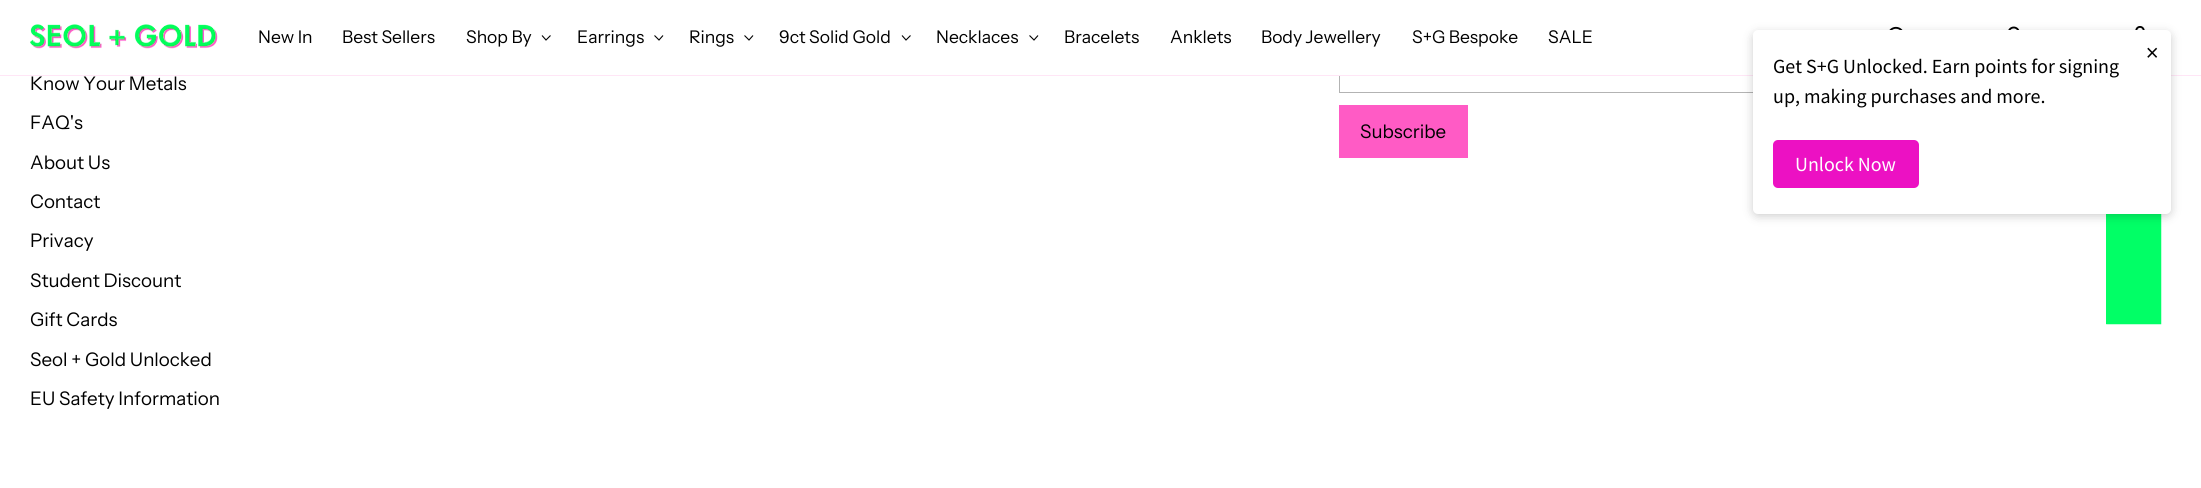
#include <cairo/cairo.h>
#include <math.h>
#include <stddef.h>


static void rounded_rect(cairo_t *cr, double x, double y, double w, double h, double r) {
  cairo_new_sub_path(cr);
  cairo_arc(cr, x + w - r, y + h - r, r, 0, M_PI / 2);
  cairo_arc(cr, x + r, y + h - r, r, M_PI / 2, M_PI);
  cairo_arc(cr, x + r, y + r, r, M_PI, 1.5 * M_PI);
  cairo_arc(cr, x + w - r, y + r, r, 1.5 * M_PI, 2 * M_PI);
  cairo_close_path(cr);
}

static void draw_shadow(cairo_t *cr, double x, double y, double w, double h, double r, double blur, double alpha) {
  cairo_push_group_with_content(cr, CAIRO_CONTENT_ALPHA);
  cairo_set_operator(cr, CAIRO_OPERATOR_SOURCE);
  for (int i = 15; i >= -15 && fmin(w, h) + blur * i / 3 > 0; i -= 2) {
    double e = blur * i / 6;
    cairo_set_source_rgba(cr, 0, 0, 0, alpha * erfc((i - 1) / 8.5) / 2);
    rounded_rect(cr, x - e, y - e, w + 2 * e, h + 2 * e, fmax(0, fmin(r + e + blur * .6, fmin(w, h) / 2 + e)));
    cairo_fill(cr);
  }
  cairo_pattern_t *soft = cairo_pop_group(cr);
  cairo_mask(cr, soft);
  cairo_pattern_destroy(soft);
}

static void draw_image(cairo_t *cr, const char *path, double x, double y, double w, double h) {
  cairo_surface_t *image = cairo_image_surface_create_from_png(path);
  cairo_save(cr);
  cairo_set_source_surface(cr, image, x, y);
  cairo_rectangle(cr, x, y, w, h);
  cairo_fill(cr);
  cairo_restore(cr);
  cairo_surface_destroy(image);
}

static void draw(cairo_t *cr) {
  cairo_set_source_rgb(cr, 1, 1, 1);
  cairo_paint(cr);
  cairo_rectangle(cr, 1339.5, 41.5, 831, 51);
  cairo_set_source_rgb(cr, 179 / 255.0, 179 / 255.0, 179 / 255.0);
  cairo_set_line_width(cr, 1);
  cairo_stroke(cr);
  cairo_set_source_rgb(cr, 1, 1, 1);
  cairo_rectangle(cr, 1339, 41, 832, 34);
  cairo_fill(cr);
  cairo_set_source_rgb(cr, 1, 230 / 255.0, 246 / 255.0);
  cairo_rectangle(cr, 0, 75, 2201, 1);
  cairo_fill(cr);
  draw_image(cr, "images/1.png", 30, 24, 188, 25);
  draw_image(cr, "images/2.png", 1889, 26, 14, 4);
  draw_image(cr, "images/3.png", 2008, 26, 12, 4);
  draw_image(cr, "images/4.png", 2135, 26, 10, 4);
  cairo_new_path(cr);
  cairo_move_to(cr, 542, 35.5);
  cairo_line_to(cr, 546, 40);
  cairo_line_to(cr, 550.5, 35.5);
  cairo_set_source_rgb(cr, 0, 0, 0);
  cairo_set_line_width(cr, 1.1);
  cairo_stroke(cr);
  cairo_new_path(cr);
  cairo_move_to(cr, 654.5, 35.5);
  cairo_line_to(cr, 659, 40);
  cairo_line_to(cr, 663, 35.5);
  cairo_stroke(cr);
  cairo_new_path(cr);
  cairo_move_to(cr, 744.5, 35.5);
  cairo_line_to(cr, 749, 40);
  cairo_line_to(cr, 753, 35.5);
  cairo_stroke(cr);
  cairo_new_path(cr);
  cairo_move_to(cr, 902, 35.5);
  cairo_line_to(cr, 906, 40);
  cairo_line_to(cr, 910.5, 35.5);
  cairo_stroke(cr);
  cairo_new_path(cr);
  cairo_move_to(cr, 1029.5, 35.5);
  cairo_line_to(cr, 1034, 40);
  cairo_line_to(cr, 1038, 35.5);
  cairo_stroke(cr);
  cairo_set_source_rgb(cr, 1, 91 / 255.0, 197 / 255.0);
  cairo_rectangle(cr, 1339, 105, 129, 53);
  cairo_fill(cr);
  cairo_set_source_rgb(cr, 1 / 255.0, 1, 102 / 255.0);
  cairo_rectangle(cr, 2106, 214, 53, 110);
  cairo_fill(cr);
  cairo_new_path(cr);
  cairo_move_to(cr, 2107.5, 323);
  cairo_line_to(cr, 2107.5, 165.5);
  cairo_line_to(cr, 2160, 165.5);
  cairo_line_to(cr, 2160, 323);
  cairo_close_path(cr);
  cairo_set_line_width(cr, 2.5);
  cairo_stroke(cr);
  cairo_set_source_rgb(cr, 0, 0, 0);
  draw_shadow(cr, 1753, 33, 418, 183, 5, 5, 0.2);
  cairo_set_source_rgb(cr, 1, 1, 1);
  rounded_rect(cr, 1753, 30, 418, 184, 5);
  cairo_fill(cr);
  cairo_set_source_rgb(cr, 236 / 255.0, 17 / 255.0, 195 / 255.0);
  rounded_rect(cr, 1773, 140, 146, 48, 5);
  cairo_fill(cr);
  cairo_select_font_face(cr, "Instrument Sans", CAIRO_FONT_SLANT_NORMAL, CAIRO_FONT_WEIGHT_NORMAL);
  cairo_set_font_size(cr, 17.5);
  cairo_set_source_rgb(cr, 0, 0, 0);
  cairo_move_to(cr, 258, 43);
  cairo_show_text(cr, "New In");
  cairo_move_to(cr, 342, 43);
  cairo_show_text(cr, "Best Sellers");
  cairo_move_to(cr, 466, 43);
  cairo_show_text(cr, "Shop By");
  cairo_move_to(cr, 577, 43);
  cairo_show_text(cr, "Earrings");
  cairo_move_to(cr, 689, 43);
  cairo_show_text(cr, "Rings");
  cairo_move_to(cr, 779, 43);
  cairo_show_text(cr, "9ct Solid Gold");
  cairo_move_to(cr, 936, 43);
  cairo_show_text(cr, "Necklaces");
  cairo_move_to(cr, 1064, 43);
  cairo_show_text(cr, "Bracelets");
  cairo_move_to(cr, 1170, 43);
  cairo_show_text(cr, "Anklets");
  cairo_move_to(cr, 1261, 43);
  cairo_show_text(cr, "Body Jewellery");
  cairo_move_to(cr, 1412, 43);
  cairo_show_text(cr, "S+G Bespoke");
  cairo_move_to(cr, 1548, 43);
  cairo_show_text(cr, "SALE");
  cairo_set_font_size(cr, 18.75);
  cairo_move_to(cr, 30, 90);
  cairo_show_text(cr, "Know Your Metals");
  cairo_move_to(cr, 30, 129);
  cairo_show_text(cr, "FAQ's");
  cairo_move_to(cr, 30, 169);
  cairo_show_text(cr, "About Us");
  cairo_move_to(cr, 30, 208);
  cairo_show_text(cr, "Contact");
  cairo_move_to(cr, 30, 247);
  cairo_show_text(cr, "Privacy");
  cairo_move_to(cr, 30, 287);
  cairo_show_text(cr, "Student Discount");
  cairo_move_to(cr, 30, 326);
  cairo_show_text(cr, "Gift Cards");
  cairo_move_to(cr, 30, 366);
  cairo_show_text(cr, "Seol + Gold Unlocked");
  cairo_move_to(cr, 30, 405);
  cairo_show_text(cr, "EU Safety Information");
  cairo_move_to(cr, 1360, 138);
  cairo_show_text(cr, "Subscribe");
  cairo_select_font_face(cr, "Source Sans Pro", CAIRO_FONT_SLANT_NORMAL, CAIRO_FONT_WEIGHT_NORMAL);
  cairo_set_font_size(cr, 25);
  cairo_move_to(cr, 2146, 61);
  cairo_show_text(cr, "×");
  cairo_set_font_size(cr, 20);
  cairo_move_to(cr, 1773, 73);
  cairo_show_text(cr, "Get S+G Unlocked. Earn points for signing");
  cairo_move_to(cr, 1773, 103);
  cairo_show_text(cr, "up, making purchases and more.");
  cairo_set_source_rgb(cr, 1, 1, 1);
  cairo_move_to(cr, 1795, 171);
  cairo_show_text(cr, "Unlock Now");
}

int main(void) {
  cairo_surface_t *surface = cairo_image_surface_create(CAIRO_FORMAT_RGB24, 2201, 488);
  cairo_t *cr = cairo_create(surface);
  cairo_font_options_t *options = cairo_font_options_create();
  cairo_font_options_set_hint_metrics(options, CAIRO_HINT_METRICS_OFF);
  cairo_font_options_set_hint_style(options, CAIRO_HINT_STYLE_NONE);
  cairo_set_font_options(cr, options);
  cairo_set_miter_limit(cr, 4);
  draw(cr);
  cairo_surface_write_to_png(surface, "out.png");
  cairo_font_options_destroy(options);
  cairo_destroy(cr);
  cairo_surface_destroy(surface);
  return 0;
}
